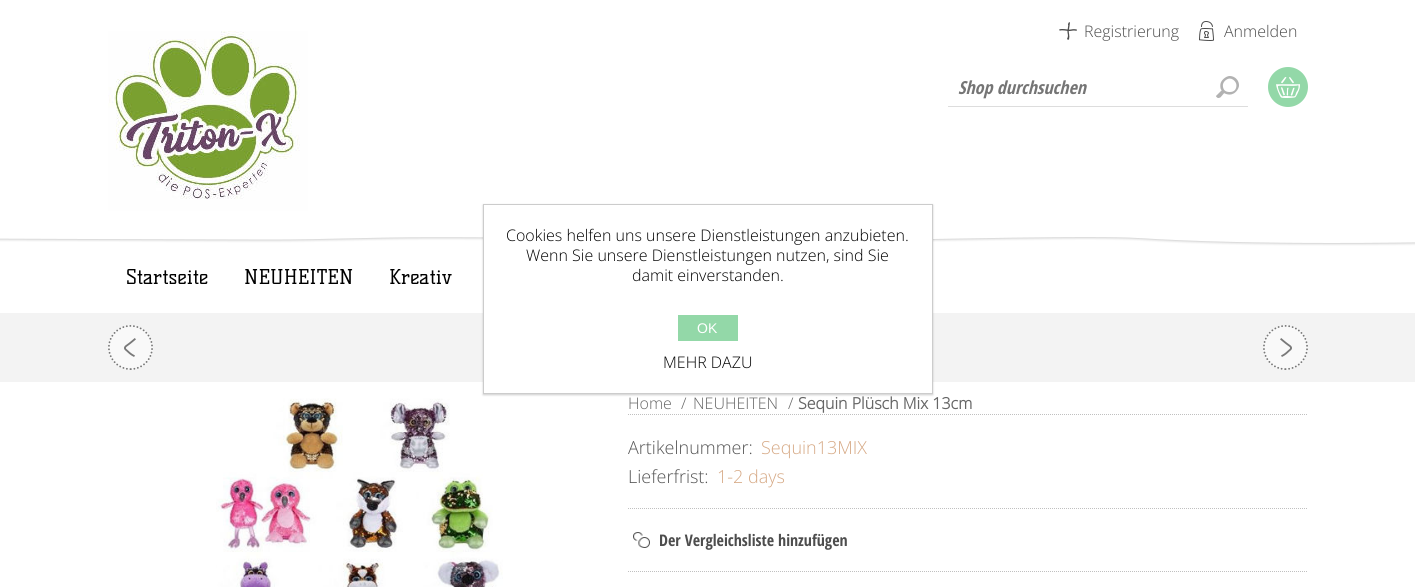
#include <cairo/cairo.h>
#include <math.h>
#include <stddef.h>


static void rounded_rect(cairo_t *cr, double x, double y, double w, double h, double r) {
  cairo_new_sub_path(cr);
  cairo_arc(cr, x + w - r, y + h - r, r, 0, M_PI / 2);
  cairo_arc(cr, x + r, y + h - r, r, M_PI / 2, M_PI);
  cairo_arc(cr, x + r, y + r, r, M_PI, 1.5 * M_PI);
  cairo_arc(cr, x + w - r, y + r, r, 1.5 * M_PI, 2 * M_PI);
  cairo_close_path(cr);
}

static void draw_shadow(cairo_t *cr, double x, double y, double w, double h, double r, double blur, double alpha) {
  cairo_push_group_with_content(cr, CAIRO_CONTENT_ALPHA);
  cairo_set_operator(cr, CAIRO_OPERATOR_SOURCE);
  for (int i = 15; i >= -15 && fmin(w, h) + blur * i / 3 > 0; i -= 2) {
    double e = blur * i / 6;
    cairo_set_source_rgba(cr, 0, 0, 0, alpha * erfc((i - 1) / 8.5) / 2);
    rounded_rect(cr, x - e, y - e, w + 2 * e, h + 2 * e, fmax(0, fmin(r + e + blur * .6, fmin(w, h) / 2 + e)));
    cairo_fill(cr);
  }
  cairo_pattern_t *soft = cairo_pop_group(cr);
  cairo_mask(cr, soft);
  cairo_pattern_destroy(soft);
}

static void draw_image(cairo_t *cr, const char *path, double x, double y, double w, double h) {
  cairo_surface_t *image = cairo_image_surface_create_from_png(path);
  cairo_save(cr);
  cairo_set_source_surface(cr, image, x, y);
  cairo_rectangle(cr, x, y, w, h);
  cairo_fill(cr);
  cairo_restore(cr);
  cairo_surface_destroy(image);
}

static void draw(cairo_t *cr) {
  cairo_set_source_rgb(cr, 1, 1, 1);
  cairo_paint(cr);
  draw_image(cr, "images/1.png", 0, 237, 1415, 9);
  draw_image(cr, "images/2.png", 108, 31, 200, 180);
  cairo_set_source_rgb(cr, 221 / 255.0, 221 / 255.0, 221 / 255.0);
  cairo_rectangle(cr, 948, 106, 300, 1);
  cairo_fill(cr);
  draw_image(cr, "images/3.png", 1216, 76, 23, 22);
  cairo_set_source_rgb(cr, 147 / 255.0, 216 / 255.0, 168 / 255.0);
  cairo_arc(cr, 1288, 87, 20, 0, 2 * M_PI);
  cairo_fill(cr);
  draw_image(cr, "images/4.png", 1276, 77, 24, 21);
  draw_image(cr, "images/5.png", 1059, 22, 18, 18);
  draw_image(cr, "images/6.png", 1199, 21, 15, 20);
  cairo_set_source_rgb(cr, 243 / 255.0, 243 / 255.0, 243 / 255.0);
  cairo_rectangle(cr, 0, 313, 1415, 69);
  cairo_fill(cr);
  draw_image(cr, "images/9.png", 216, 398, 287, 189);
  cairo_set_source_rgb(cr, 0, 0, 0);
  draw_shadow(cr, 483, 205, 450, 190, 0, 1, 0.2);
  cairo_set_source_rgb(cr, 1, 1, 1);
  cairo_rectangle(cr, 483.5, 204.5, 449, 189);
  cairo_fill_preserve(cr);
  cairo_set_source_rgb(cr, 204 / 255.0, 204 / 255.0, 204 / 255.0);
  cairo_set_line_width(cr, 1);
  cairo_stroke(cr);
  cairo_set_source_rgb(cr, 147 / 255.0, 216 / 255.0, 168 / 255.0);
  cairo_rectangle(cr, 678, 315, 60, 26);
  cairo_fill(cr);
  draw_image(cr, "images/7.png", 108, 325, 45, 45);
  draw_image(cr, "images/8.png", 1263, 325, 45, 45);
  cairo_new_path(cr);
  cairo_move_to(cr, 628, 414.5);
  cairo_line_to(cr, 1308, 414.5);
  cairo_set_source_rgb(cr, 192 / 255.0, 192 / 255.0, 192 / 255.0);
  cairo_set_dash(cr, (double[]){1, 1}, 2, 0);
  cairo_stroke(cr);
  cairo_new_path(cr);
  cairo_move_to(cr, 628, 508.5);
  cairo_line_to(cr, 1308, 508.5);
  cairo_stroke(cr);
  cairo_new_path(cr);
  cairo_move_to(cr, 628, 571.5);
  cairo_line_to(cr, 1308, 571.5);
  cairo_stroke(cr);
  draw_image(cr, "images/10.png", 633, 532, 17, 16);
  cairo_select_font_face(cr, "Open Sans Condensed", CAIRO_FONT_SLANT_ITALIC, CAIRO_FONT_WEIGHT_BOLD);
  cairo_set_font_size(cr, 18);
  cairo_set_source_rgb(cr, 117 / 255.0, 117 / 255.0, 117 / 255.0);
  cairo_move_to(cr, 958, 94);
  cairo_show_text(cr, "Shop durchsuchen");
  cairo_select_font_face(cr, "Open Sans Light", CAIRO_FONT_SLANT_NORMAL, CAIRO_FONT_WEIGHT_NORMAL);
  cairo_set_font_size(cr, 16);
  cairo_set_source_rgb(cr, 77 / 255.0, 77 / 255.0, 77 / 255.0);
  cairo_move_to(cr, 1084, 37);
  cairo_show_text(cr, "Registrierung");
  cairo_move_to(cr, 1224, 37);
  cairo_show_text(cr, "Anmelden");
  cairo_set_source_rgb(cr, 0, 0, 0);
  cairo_move_to(cr, 506, 241);
  cairo_show_text(cr, "Cookies helfen uns unsere Dienstleistungen anzubieten.");
  cairo_move_to(cr, 526, 261);
  cairo_show_text(cr, "Wenn Sie unsere Dienstleistungen nutzen, sind Sie");
  cairo_move_to(cr, 632, 281);
  cairo_show_text(cr, "damit einverstanden.");
  cairo_select_font_face(cr, "Liberation Sans", CAIRO_FONT_SLANT_NORMAL, CAIRO_FONT_WEIGHT_NORMAL);
  cairo_set_font_size(cr, 14);
  cairo_set_source_rgb(cr, 1, 1, 1);
  cairo_move_to(cr, 697, 333);
  cairo_show_text(cr, "OK");
  cairo_select_font_face(cr, "Open Sans Light", CAIRO_FONT_SLANT_NORMAL, CAIRO_FONT_WEIGHT_NORMAL);
  cairo_set_font_size(cr, 16);
  cairo_set_source_rgb(cr, 0, 0, 0);
  cairo_move_to(cr, 663, 368);
  cairo_show_text(cr, "MEHR DAZU");
  cairo_select_font_face(cr, "Kelly Slab", CAIRO_FONT_SLANT_NORMAL, CAIRO_FONT_WEIGHT_NORMAL);
  cairo_set_font_size(cr, 20);
  cairo_move_to(cr, 126, 284);
  cairo_show_text(cr, "Startseite");
  cairo_move_to(cr, 244, 284);
  cairo_show_text(cr, "NEUHEITEN");
  cairo_move_to(cr, 389, 284);
  cairo_show_text(cr, "Kreativ");
  cairo_select_font_face(cr, "Open Sans Light", CAIRO_FONT_SLANT_NORMAL, CAIRO_FONT_WEIGHT_NORMAL);
  cairo_set_font_size(cr, 16);
  cairo_set_source_rgb(cr, 102 / 255.0, 102 / 255.0, 102 / 255.0);
  cairo_move_to(cr, 628, 409);
  cairo_show_text(cr, "Home");
  cairo_move_to(cr, 681, 409);
  cairo_show_text(cr, "/");
  cairo_move_to(cr, 693, 409);
  cairo_show_text(cr, "NEUHEITEN");
  cairo_move_to(cr, 788, 409);
  cairo_show_text(cr, "/");
  cairo_select_font_face(cr, "Open Sans", CAIRO_FONT_SLANT_NORMAL, CAIRO_FONT_WEIGHT_BOLD);
  cairo_move_to(cr, 798, 409);
  cairo_show_text(cr, "Sequin Plüsch Mix 13cm");
  cairo_select_font_face(cr, "Open Sans Light", CAIRO_FONT_SLANT_NORMAL, CAIRO_FONT_WEIGHT_NORMAL);
  cairo_set_font_size(cr, 18);
  cairo_set_source_rgb(cr, 85 / 255.0, 85 / 255.0, 85 / 255.0);
  cairo_move_to(cr, 628, 454);
  cairo_show_text(cr, "Artikelnummer:");
  cairo_set_source_rgb(cr, 214 / 255.0, 169 / 255.0, 133 / 255.0);
  cairo_move_to(cr, 761, 454);
  cairo_show_text(cr, "Sequin13MIX");
  cairo_set_source_rgb(cr, 85 / 255.0, 85 / 255.0, 85 / 255.0);
  cairo_move_to(cr, 628, 483);
  cairo_show_text(cr, "Lieferfrist:");
  cairo_set_source_rgb(cr, 214 / 255.0, 169 / 255.0, 133 / 255.0);
  cairo_move_to(cr, 717, 483);
  cairo_show_text(cr, "1-2 days");
  cairo_select_font_face(cr, "Open Sans Condensed", CAIRO_FONT_SLANT_NORMAL, CAIRO_FONT_WEIGHT_BOLD);
  cairo_set_font_size(cr, 16);
  cairo_set_source_rgb(cr, 77 / 255.0, 77 / 255.0, 77 / 255.0);
  cairo_move_to(cr, 659, 546);
  cairo_show_text(cr, "Der Vergleichsliste hinzufügen");
}

int main(void) {
  cairo_surface_t *surface = cairo_image_surface_create(CAIRO_FORMAT_RGB24, 1415, 587);
  cairo_t *cr = cairo_create(surface);
  cairo_font_options_t *options = cairo_font_options_create();
  cairo_font_options_set_hint_metrics(options, CAIRO_HINT_METRICS_OFF);
  cairo_font_options_set_hint_style(options, CAIRO_HINT_STYLE_NONE);
  cairo_set_font_options(cr, options);
  cairo_set_miter_limit(cr, 4);
  draw(cr);
  cairo_surface_write_to_png(surface, "out.png");
  cairo_font_options_destroy(options);
  cairo_destroy(cr);
  cairo_surface_destroy(surface);
  return 0;
}
